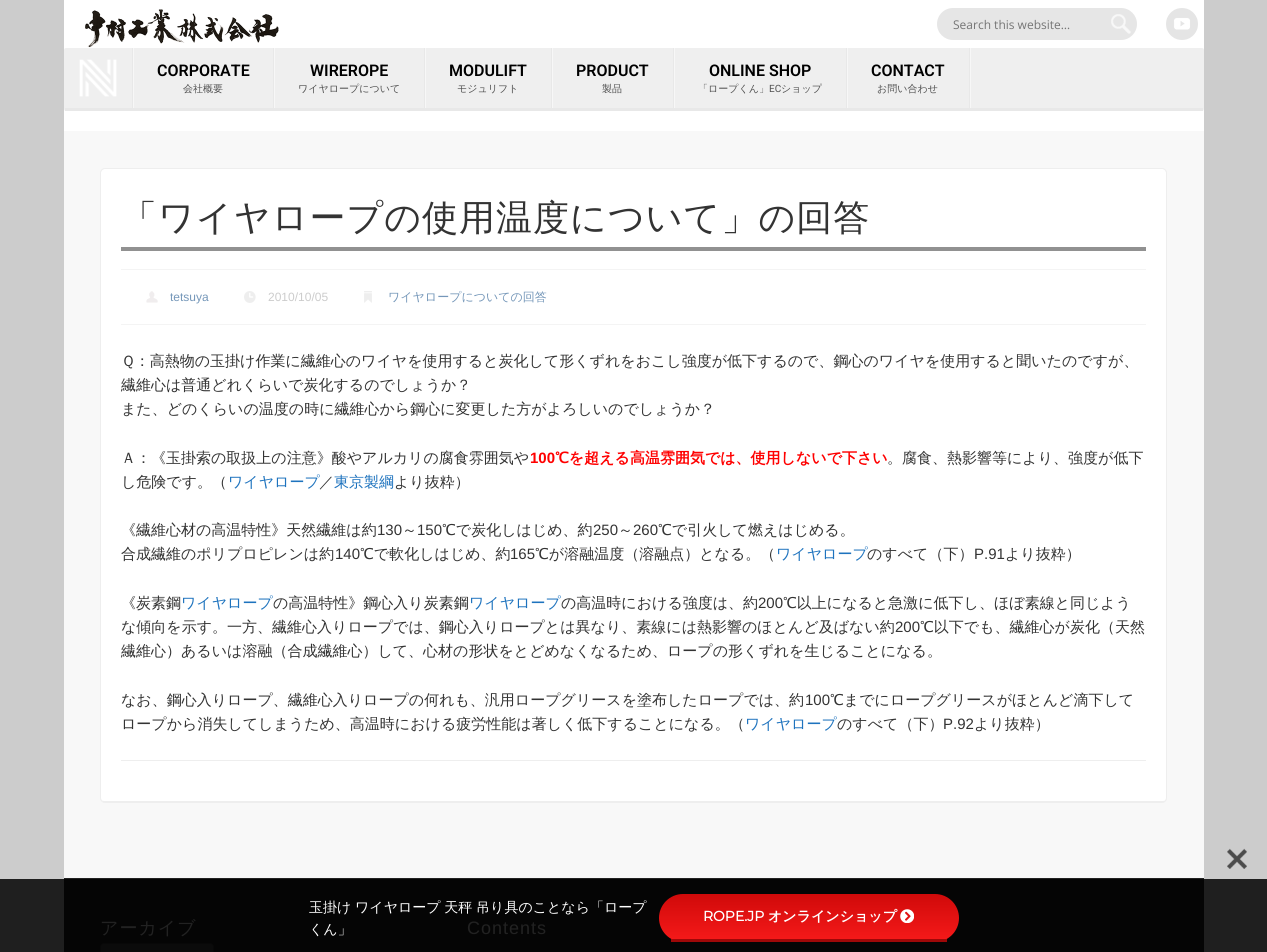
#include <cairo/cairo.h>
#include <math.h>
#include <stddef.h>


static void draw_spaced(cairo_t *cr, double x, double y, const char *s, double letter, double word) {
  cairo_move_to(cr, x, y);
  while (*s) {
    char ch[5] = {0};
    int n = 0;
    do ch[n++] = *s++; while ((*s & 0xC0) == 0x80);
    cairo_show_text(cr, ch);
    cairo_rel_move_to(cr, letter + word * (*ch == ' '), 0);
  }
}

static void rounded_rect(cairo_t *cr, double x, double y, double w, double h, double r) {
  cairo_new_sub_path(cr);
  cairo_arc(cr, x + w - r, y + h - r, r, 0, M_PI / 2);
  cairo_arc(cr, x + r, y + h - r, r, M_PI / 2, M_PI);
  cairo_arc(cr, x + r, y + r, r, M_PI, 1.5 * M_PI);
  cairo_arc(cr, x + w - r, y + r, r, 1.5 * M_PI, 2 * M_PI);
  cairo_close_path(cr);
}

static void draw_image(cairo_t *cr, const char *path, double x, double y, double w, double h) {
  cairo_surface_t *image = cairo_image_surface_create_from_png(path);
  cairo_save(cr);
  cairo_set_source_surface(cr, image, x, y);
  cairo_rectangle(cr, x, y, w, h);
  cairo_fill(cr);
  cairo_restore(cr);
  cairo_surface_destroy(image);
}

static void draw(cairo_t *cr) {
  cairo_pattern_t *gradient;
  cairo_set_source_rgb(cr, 204 / 255.0, 204 / 255.0, 204 / 255.0);
  cairo_paint(cr);
  cairo_set_source_rgb(cr, 31 / 255.0, 31 / 255.0, 31 / 255.0);
  cairo_rectangle(cr, 0, 879, 1267, 73);
  cairo_fill(cr);
  cairo_set_source_rgb(cr, 1, 1, 1);
  cairo_rectangle(cr, 64, 0, 1140, 131);
  cairo_fill(cr);
  draw_image(cr, "images/1.png", 85, 9, 194, 39);
  cairo_set_source_rgb(cr, 230 / 255.0, 230 / 255.0, 230 / 255.0);
  rounded_rect(cr, 937, 8, 200, 32, 16);
  cairo_fill(cr);
  draw_image(cr, "images/2.png", 1111, 14, 20, 20);
  draw_image(cr, "images/3.png", 1166, 8, 32, 32);
  cairo_set_source_rgb(cr, 239 / 255.0, 239 / 255.0, 239 / 255.0);
  rounded_rect(cr, 64, 48, 1140, 63, 2);
  cairo_fill(cr);
  cairo_set_source_rgb(cr, 232 / 255.0, 232 / 255.0, 232 / 255.0);
  cairo_rectangle(cr, 65, 108, 1138, 3);
  cairo_fill(cr);
  cairo_set_source_rgb(cr, 247 / 255.0, 247 / 255.0, 247 / 255.0);
  cairo_rectangle(cr, 133, 48, 1, 60);
  cairo_fill(cr);
  cairo_set_source_rgb(cr, 232 / 255.0, 232 / 255.0, 232 / 255.0);
  cairo_rectangle(cr, 132, 48, 1, 60);
  cairo_fill(cr);
  draw_image(cr, "images/4.png", 79, 59, 38, 38);
  cairo_set_source_rgb(cr, 247 / 255.0, 247 / 255.0, 247 / 255.0);
  cairo_rectangle(cr, 274, 48, 1, 60);
  cairo_fill(cr);
  cairo_set_source_rgb(cr, 232 / 255.0, 232 / 255.0, 232 / 255.0);
  cairo_rectangle(cr, 273, 48, 1, 60);
  cairo_fill(cr);
  cairo_set_source_rgb(cr, 247 / 255.0, 247 / 255.0, 247 / 255.0);
  cairo_rectangle(cr, 425, 48, 1, 60);
  cairo_fill(cr);
  cairo_set_source_rgb(cr, 232 / 255.0, 232 / 255.0, 232 / 255.0);
  cairo_rectangle(cr, 424, 48, 1, 60);
  cairo_fill(cr);
  cairo_set_source_rgb(cr, 247 / 255.0, 247 / 255.0, 247 / 255.0);
  cairo_rectangle(cr, 552, 48, 1, 60);
  cairo_fill(cr);
  cairo_set_source_rgb(cr, 232 / 255.0, 232 / 255.0, 232 / 255.0);
  cairo_rectangle(cr, 551, 48, 1, 60);
  cairo_fill(cr);
  cairo_set_source_rgb(cr, 247 / 255.0, 247 / 255.0, 247 / 255.0);
  cairo_rectangle(cr, 674, 48, 1, 60);
  cairo_fill(cr);
  cairo_set_source_rgb(cr, 232 / 255.0, 232 / 255.0, 232 / 255.0);
  cairo_rectangle(cr, 673, 48, 1, 60);
  cairo_fill(cr);
  cairo_set_source_rgb(cr, 247 / 255.0, 247 / 255.0, 247 / 255.0);
  cairo_rectangle(cr, 847, 48, 1, 60);
  cairo_fill(cr);
  cairo_set_source_rgb(cr, 232 / 255.0, 232 / 255.0, 232 / 255.0);
  cairo_rectangle(cr, 846, 48, 1, 60);
  cairo_fill(cr);
  cairo_set_source_rgb(cr, 247 / 255.0, 247 / 255.0, 247 / 255.0);
  cairo_rectangle(cr, 970, 48, 1, 60);
  cairo_fill(cr);
  cairo_set_source_rgb(cr, 232 / 255.0, 232 / 255.0, 232 / 255.0);
  cairo_rectangle(cr, 969, 48, 1, 60);
  cairo_fill(cr);
  cairo_set_source_rgb(cr, 248 / 255.0, 248 / 255.0, 248 / 255.0);
  cairo_rectangle(cr, 64, 131, 1140, 747);
  cairo_fill(cr);
  cairo_set_source_rgb(cr, 1, 1, 1);
  cairo_new_path(cr);
  cairo_move_to(cr, 105, 169);
  cairo_line_to(cr, 1162, 169);
  cairo_curve_to(cr, 1164, 169, 1166, 171, 1166, 173);
  cairo_line_to(cr, 1166, 798);
  cairo_curve_to(cr, 1166, 800, 1164, 801, 1162, 801);
  cairo_line_to(cr, 105, 801);
  cairo_curve_to(cr, 103, 801, 101, 800, 101, 798);
  cairo_line_to(cr, 101, 173);
  cairo_curve_to(cr, 101, 171, 103, 169, 105, 169);
  cairo_close_path(cr);
  cairo_fill(cr);
  rounded_rect(cr, 100.5, 168.5, 1066, 634, 4.5);
  cairo_set_source_rgb(cr, 238 / 255.0, 238 / 255.0, 238 / 255.0);
  cairo_set_line_width(cr, 1);
  cairo_stroke(cr);
  cairo_rectangle(cr, 103, 801, 1062, 1);
  cairo_fill(cr);
  cairo_set_source_rgb(cr, 145 / 255.0, 145 / 255.0, 145 / 255.0);
  cairo_rectangle(cr, 121, 247, 1025, 4);
  cairo_fill(cr);
  cairo_set_source_rgb(cr, 244 / 255.0, 244 / 255.0, 244 / 255.0);
  cairo_rectangle(cr, 121, 269, 1025, 1);
  cairo_fill(cr);
  cairo_rectangle(cr, 121, 324, 1025, 1);
  cairo_fill(cr);
  draw_image(cr, "images/5.png", 146, 291, 12, 12);
  draw_image(cr, "images/6.png", 244, 291, 12, 12);
  draw_image(cr, "images/7.png", 364, 291, 8, 12);
  cairo_set_source_rgb(cr, 238 / 255.0, 238 / 255.0, 238 / 255.0);
  cairo_rectangle(cr, 121, 760, 1025, 1);
  cairo_fill(cr);
  cairo_set_source_rgb(cr, 34 / 255.0, 34 / 255.0, 34 / 255.0);
  cairo_rectangle(cr, 64, 878, 1140, 1);
  cairo_fill(cr);
  cairo_set_source_rgb(cr, 5 / 255.0, 5 / 255.0, 5 / 255.0);
  cairo_rectangle(cr, 64, 879, 1140, 73);
  cairo_fill(cr);
  cairo_set_source_rgb(cr, 11 / 255.0, 11 / 255.0, 11 / 255.0);
  rounded_rect(cr, 100.5, 943.5, 113, 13, 3.5);
  cairo_fill_preserve(cr);
  cairo_set_source_rgb(cr, 8 / 255.0, 8 / 255.0, 8 / 255.0);
  cairo_stroke(cr);
  draw_image(cr, "images/8.png", 1227, 848, 20, 21);
  cairo_save(cr);
  rounded_rect(cr, 659, 894, 300, 48, 24);
  cairo_clip(cr);
  gradient = cairo_pattern_create_linear(809, 894, 809, 939);
  cairo_pattern_add_color_stop_rgba(gradient, 0, 208 / 255.0, 10 / 255.0, 10 / 255.0, 1);
  cairo_pattern_add_color_stop_rgba(gradient, 1, 244 / 255.0, 25 / 255.0, 25 / 255.0, 1);
  cairo_set_source(cr, gradient);
  cairo_pattern_destroy(gradient);
  cairo_new_path(cr);
  cairo_move_to(cr, 683, 894);
  cairo_line_to(cr, 935, 894);
  cairo_curve_to(cr, 948.5, 894, 959, 904.5, 959, 918);
  cairo_line_to(cr, 959, 939);
  cairo_line_to(cr, 659, 939);
  cairo_line_to(cr, 659, 918);
  cairo_curve_to(cr, 659, 904.5, 669.5, 894, 683, 894);
  cairo_close_path(cr);
  cairo_fill(cr);
  cairo_restore(cr);
  cairo_set_source_rgb(cr, 159 / 255.0, 8 / 255.0, 8 / 255.0);
  cairo_rectangle(cr, 671, 939, 276, 3);
  cairo_fill(cr);
  draw_image(cr, "images/9.png", 900, 909, 14, 14);
  cairo_select_font_face(cr, "Open Sans", CAIRO_FONT_SLANT_NORMAL, CAIRO_FONT_WEIGHT_NORMAL);
  cairo_set_font_size(cr, 12);
  cairo_set_source_rgb(cr, 117 / 255.0, 117 / 255.0, 117 / 255.0);
  cairo_move_to(cr, 953, 29);
  cairo_show_text(cr, "Search this website…");
  cairo_select_font_face(cr, "Roboto SemiBold", CAIRO_FONT_SLANT_NORMAL, CAIRO_FONT_WEIGHT_NORMAL);
  cairo_set_font_size(cr, 16);
  cairo_set_source_rgb(cr, 0, 0, 0);
  cairo_move_to(cr, 157, 76);
  cairo_show_text(cr, "CORPORATE");
  cairo_select_font_face(cr, "WenQuanYi Zen Hei Medium", CAIRO_FONT_SLANT_NORMAL, CAIRO_FONT_WEIGHT_NORMAL);
  cairo_set_font_size(cr, 10);
  cairo_set_source_rgb(cr, 80 / 255.0, 80 / 255.0, 80 / 255.0);
  cairo_move_to(cr, 183, 92);
  cairo_show_text(cr, "会社概要");
  cairo_select_font_face(cr, "Roboto SemiBold", CAIRO_FONT_SLANT_NORMAL, CAIRO_FONT_WEIGHT_NORMAL);
  cairo_set_font_size(cr, 16);
  cairo_set_source_rgb(cr, 0, 0, 0);
  cairo_move_to(cr, 310, 76);
  cairo_show_text(cr, "WIREROPE");
  cairo_select_font_face(cr, "WenQuanYi Zen Hei Medium", CAIRO_FONT_SLANT_NORMAL, CAIRO_FONT_WEIGHT_NORMAL);
  cairo_set_font_size(cr, 10);
  cairo_set_source_rgb(cr, 80 / 255.0, 80 / 255.0, 80 / 255.0);
  cairo_move_to(cr, 298, 92);
  cairo_show_text(cr, "ワイヤロープについて");
  cairo_select_font_face(cr, "Roboto SemiBold", CAIRO_FONT_SLANT_NORMAL, CAIRO_FONT_WEIGHT_NORMAL);
  cairo_set_font_size(cr, 16);
  cairo_set_source_rgb(cr, 0, 0, 0);
  cairo_move_to(cr, 449, 76);
  cairo_show_text(cr, "MODULIFT");
  cairo_select_font_face(cr, "WenQuanYi Zen Hei Medium", CAIRO_FONT_SLANT_NORMAL, CAIRO_FONT_WEIGHT_NORMAL);
  cairo_set_font_size(cr, 10);
  cairo_set_source_rgb(cr, 80 / 255.0, 80 / 255.0, 80 / 255.0);
  cairo_move_to(cr, 457, 92);
  cairo_show_text(cr, "モジュリフト");
  cairo_select_font_face(cr, "Roboto SemiBold", CAIRO_FONT_SLANT_NORMAL, CAIRO_FONT_WEIGHT_NORMAL);
  cairo_set_font_size(cr, 16);
  cairo_set_source_rgb(cr, 0, 0, 0);
  cairo_move_to(cr, 576, 76);
  cairo_show_text(cr, "PRODUCT");
  cairo_select_font_face(cr, "WenQuanYi Zen Hei Medium", CAIRO_FONT_SLANT_NORMAL, CAIRO_FONT_WEIGHT_NORMAL);
  cairo_set_font_size(cr, 10);
  cairo_set_source_rgb(cr, 80 / 255.0, 80 / 255.0, 80 / 255.0);
  cairo_move_to(cr, 602, 92);
  cairo_show_text(cr, "製品");
  cairo_select_font_face(cr, "Roboto SemiBold", CAIRO_FONT_SLANT_NORMAL, CAIRO_FONT_WEIGHT_NORMAL);
  cairo_set_font_size(cr, 16);
  cairo_set_source_rgb(cr, 0, 0, 0);
  cairo_move_to(cr, 709, 76);
  cairo_show_text(cr, "ONLINE SHOP");
  cairo_select_font_face(cr, "WenQuanYi Zen Hei Medium", CAIRO_FONT_SLANT_NORMAL, CAIRO_FONT_WEIGHT_NORMAL);
  cairo_set_font_size(cr, 10);
  cairo_set_source_rgb(cr, 80 / 255.0, 80 / 255.0, 80 / 255.0);
  cairo_move_to(cr, 698, 92);
  cairo_show_text(cr, "「ロープくん」");
  cairo_select_font_face(cr, "Roboto", CAIRO_FONT_SLANT_NORMAL, CAIRO_FONT_WEIGHT_NORMAL);
  cairo_move_to(cr, 769, 92);
  cairo_show_text(cr, "EC");
  cairo_select_font_face(cr, "WenQuanYi Zen Hei Medium", CAIRO_FONT_SLANT_NORMAL, CAIRO_FONT_WEIGHT_NORMAL);
  cairo_move_to(cr, 781, 92);
  cairo_show_text(cr, "ショップ");
  cairo_select_font_face(cr, "Roboto SemiBold", CAIRO_FONT_SLANT_NORMAL, CAIRO_FONT_WEIGHT_NORMAL);
  cairo_set_font_size(cr, 16);
  cairo_set_source_rgb(cr, 0, 0, 0);
  cairo_move_to(cr, 871, 76);
  cairo_show_text(cr, "CONTACT");
  cairo_select_font_face(cr, "WenQuanYi Zen Hei Medium", CAIRO_FONT_SLANT_NORMAL, CAIRO_FONT_WEIGHT_NORMAL);
  cairo_set_font_size(cr, 10);
  cairo_set_source_rgb(cr, 80 / 255.0, 80 / 255.0, 80 / 255.0);
  cairo_move_to(cr, 877, 92);
  cairo_show_text(cr, "お問い合わせ");
  cairo_set_font_size(cr, 36);
  cairo_set_source_rgb(cr, 51 / 255.0, 51 / 255.0, 51 / 255.0);
  draw_spaced(cr, 121, 230, "「ワイヤロープの使用温度について」の回答", 1, 0);
  cairo_select_font_face(cr, "Liberation Sans", CAIRO_FONT_SLANT_NORMAL, CAIRO_FONT_WEIGHT_NORMAL);
  cairo_set_font_size(cr, 12);
  cairo_set_source_rgb(cr, 117 / 255.0, 151 / 255.0, 185 / 255.0);
  cairo_move_to(cr, 170, 301);
  cairo_show_text(cr, "tetsuya");
  cairo_set_source_rgb(cr, 204 / 255.0, 204 / 255.0, 204 / 255.0);
  cairo_move_to(cr, 268, 301);
  cairo_show_text(cr, "2010/10/05");
  cairo_select_font_face(cr, "WenQuanYi Zen Hei Medium", CAIRO_FONT_SLANT_NORMAL, CAIRO_FONT_WEIGHT_NORMAL);
  cairo_set_source_rgb(cr, 117 / 255.0, 151 / 255.0, 185 / 255.0);
  cairo_move_to(cr, 388, 301);
  cairo_show_text(cr, "ワイヤロープについての回答");
  cairo_set_font_size(cr, 15);
  cairo_set_source_rgb(cr, 51 / 255.0, 51 / 255.0, 51 / 255.0);
  cairo_move_to(cr, 121, 366);
  cairo_show_text(cr, "Ｑ：高熱物の玉掛け作業に繊維心のワイヤを使用すると炭化して形くずれをおこし強度が低下するので、鋼心のワイヤを使用すると聞いたのですが、");
  cairo_move_to(cr, 121, 390);
  cairo_show_text(cr, "繊維心は普通どれくらいで炭化するのでしょうか？");
  cairo_move_to(cr, 121, 414);
  cairo_show_text(cr, "また、どのくらいの温度の時に繊維心から鋼心に変更した方がよろしいのでしょうか？");
  cairo_move_to(cr, 121, 463);
  cairo_show_text(cr, "Ａ：《玉掛索の取扱上の注意》酸やアルカリの腐食雰囲気や");
  cairo_select_font_face(cr, "Liberation Sans", CAIRO_FONT_SLANT_NORMAL, CAIRO_FONT_WEIGHT_BOLD);
  cairo_set_source_rgb(cr, 1, 0, 0);
  cairo_move_to(cr, 530, 463);
  cairo_show_text(cr, "100");
  cairo_select_font_face(cr, "WenQuanYi Zen Hei", CAIRO_FONT_SLANT_NORMAL, CAIRO_FONT_WEIGHT_BOLD);
  cairo_move_to(cr, 555, 463);
  cairo_show_text(cr, "℃を超える高温雰囲気では、使用しないで下さい");
  cairo_select_font_face(cr, "WenQuanYi Zen Hei Medium", CAIRO_FONT_SLANT_NORMAL, CAIRO_FONT_WEIGHT_NORMAL);
  cairo_set_source_rgb(cr, 51 / 255.0, 51 / 255.0, 51 / 255.0);
  cairo_move_to(cr, 887, 463);
  cairo_show_text(cr, "。腐食、熱影響等により、強度が低下");
  cairo_move_to(cr, 121, 487);
  cairo_show_text(cr, "し危険です。（");
  cairo_set_source_rgb(cr, 30 / 255.0, 115 / 255.0, 190 / 255.0);
  cairo_move_to(cr, 228, 487);
  cairo_show_text(cr, "ワイヤロープ");
  cairo_set_source_rgb(cr, 51 / 255.0, 51 / 255.0, 51 / 255.0);
  cairo_move_to(cr, 319, 487);
  cairo_show_text(cr, "／");
  cairo_set_source_rgb(cr, 30 / 255.0, 115 / 255.0, 190 / 255.0);
  cairo_move_to(cr, 334, 487);
  cairo_show_text(cr, "東京製綱");
  cairo_set_source_rgb(cr, 51 / 255.0, 51 / 255.0, 51 / 255.0);
  cairo_move_to(cr, 394, 487);
  cairo_show_text(cr, "より抜粋）");
  cairo_move_to(cr, 121, 535);
  cairo_show_text(cr, "《繊維心材の高温特性》天然繊維は約");
  cairo_select_font_face(cr, "Liberation Sans", CAIRO_FONT_SLANT_NORMAL, CAIRO_FONT_WEIGHT_NORMAL);
  cairo_move_to(cr, 377, 535);
  cairo_show_text(cr, "130");
  cairo_select_font_face(cr, "WenQuanYi Zen Hei Medium", CAIRO_FONT_SLANT_NORMAL, CAIRO_FONT_WEIGHT_NORMAL);
  cairo_move_to(cr, 402, 535);
  cairo_show_text(cr, "～");
  cairo_select_font_face(cr, "Liberation Sans", CAIRO_FONT_SLANT_NORMAL, CAIRO_FONT_WEIGHT_NORMAL);
  cairo_move_to(cr, 417, 535);
  cairo_show_text(cr, "150");
  cairo_select_font_face(cr, "WenQuanYi Zen Hei Medium", CAIRO_FONT_SLANT_NORMAL, CAIRO_FONT_WEIGHT_NORMAL);
  cairo_move_to(cr, 442, 535);
  cairo_show_text(cr, "℃で炭化しはじめ、約");
  cairo_select_font_face(cr, "Liberation Sans", CAIRO_FONT_SLANT_NORMAL, CAIRO_FONT_WEIGHT_NORMAL);
  cairo_move_to(cr, 593, 535);
  cairo_show_text(cr, "250");
  cairo_select_font_face(cr, "WenQuanYi Zen Hei Medium", CAIRO_FONT_SLANT_NORMAL, CAIRO_FONT_WEIGHT_NORMAL);
  cairo_move_to(cr, 618, 535);
  cairo_show_text(cr, "～");
  cairo_select_font_face(cr, "Liberation Sans", CAIRO_FONT_SLANT_NORMAL, CAIRO_FONT_WEIGHT_NORMAL);
  cairo_move_to(cr, 633, 535);
  cairo_show_text(cr, "260");
  cairo_select_font_face(cr, "WenQuanYi Zen Hei Medium", CAIRO_FONT_SLANT_NORMAL, CAIRO_FONT_WEIGHT_NORMAL);
  cairo_move_to(cr, 658, 535);
  cairo_show_text(cr, "℃で引火して燃えはじめる。");
  cairo_move_to(cr, 121, 559);
  cairo_show_text(cr, "合成繊維のポリプロピレンは約");
  cairo_select_font_face(cr, "Liberation Sans", CAIRO_FONT_SLANT_NORMAL, CAIRO_FONT_WEIGHT_NORMAL);
  cairo_move_to(cr, 335, 559);
  cairo_show_text(cr, "140");
  cairo_select_font_face(cr, "WenQuanYi Zen Hei Medium", CAIRO_FONT_SLANT_NORMAL, CAIRO_FONT_WEIGHT_NORMAL);
  cairo_move_to(cr, 360, 559);
  cairo_show_text(cr, "℃で軟化しはじめ、約");
  cairo_select_font_face(cr, "Liberation Sans", CAIRO_FONT_SLANT_NORMAL, CAIRO_FONT_WEIGHT_NORMAL);
  cairo_move_to(cr, 510, 559);
  cairo_show_text(cr, "165");
  cairo_select_font_face(cr, "WenQuanYi Zen Hei Medium", CAIRO_FONT_SLANT_NORMAL, CAIRO_FONT_WEIGHT_NORMAL);
  cairo_move_to(cr, 535, 559);
  cairo_show_text(cr, "℃が溶融温度（溶融点）となる。（");
  cairo_set_source_rgb(cr, 30 / 255.0, 115 / 255.0, 190 / 255.0);
  cairo_move_to(cr, 776, 559);
  cairo_show_text(cr, "ワイヤロープ");
  cairo_set_source_rgb(cr, 51 / 255.0, 51 / 255.0, 51 / 255.0);
  cairo_move_to(cr, 867, 559);
  cairo_show_text(cr, "のすべて（下）");
  cairo_select_font_face(cr, "Liberation Sans", CAIRO_FONT_SLANT_NORMAL, CAIRO_FONT_WEIGHT_NORMAL);
  cairo_move_to(cr, 974, 559);
  cairo_show_text(cr, "P.91");
  cairo_select_font_face(cr, "WenQuanYi Zen Hei Medium", CAIRO_FONT_SLANT_NORMAL, CAIRO_FONT_WEIGHT_NORMAL);
  cairo_move_to(cr, 1005, 559);
  cairo_show_text(cr, "より抜粋）");
  cairo_move_to(cr, 121, 608);
  cairo_show_text(cr, "《炭素鋼");
  cairo_set_source_rgb(cr, 30 / 255.0, 115 / 255.0, 190 / 255.0);
  cairo_move_to(cr, 181, 608);
  cairo_show_text(cr, "ワイヤロープ");
  cairo_set_source_rgb(cr, 51 / 255.0, 51 / 255.0, 51 / 255.0);
  cairo_move_to(cr, 273, 608);
  cairo_show_text(cr, "の高温特性》鋼心入り炭素鋼");
  cairo_set_source_rgb(cr, 30 / 255.0, 115 / 255.0, 190 / 255.0);
  cairo_move_to(cr, 469, 608);
  cairo_show_text(cr, "ワイヤロープ");
  cairo_set_source_rgb(cr, 51 / 255.0, 51 / 255.0, 51 / 255.0);
  cairo_move_to(cr, 561, 608);
  cairo_show_text(cr, "の高温時における強度は、約");
  cairo_select_font_face(cr, "Liberation Sans", CAIRO_FONT_SLANT_NORMAL, CAIRO_FONT_WEIGHT_NORMAL);
  cairo_move_to(cr, 758, 608);
  cairo_show_text(cr, "200");
  cairo_select_font_face(cr, "WenQuanYi Zen Hei Medium", CAIRO_FONT_SLANT_NORMAL, CAIRO_FONT_WEIGHT_NORMAL);
  cairo_move_to(cr, 783, 608);
  cairo_show_text(cr, "℃以上になると急激に低下し、ほぼ素線と同じよう");
  cairo_move_to(cr, 121, 632);
  cairo_show_text(cr, "な傾向を示す。一方、繊維心入りロープでは、鋼心入りロープとは異なり、素線には熱影響のほとんど及ばない約");
  cairo_select_font_face(cr, "Liberation Sans", CAIRO_FONT_SLANT_NORMAL, CAIRO_FONT_WEIGHT_NORMAL);
  cairo_move_to(cr, 895, 632);
  cairo_show_text(cr, "200");
  cairo_select_font_face(cr, "WenQuanYi Zen Hei Medium", CAIRO_FONT_SLANT_NORMAL, CAIRO_FONT_WEIGHT_NORMAL);
  cairo_move_to(cr, 920, 632);
  cairo_show_text(cr, "℃以下でも、繊維心が炭化（天然");
  cairo_move_to(cr, 121, 656);
  cairo_show_text(cr, "繊維心）あるいは溶融（合成繊維心）して、心材の形状をとどめなくなるため、ロープの形くずれを生じることになる。");
  cairo_move_to(cr, 121, 705);
  cairo_show_text(cr, "なお、鋼心入りロープ、繊維心入りロープの何れも、汎用ロープグリースを塗布したロープでは、約");
  cairo_select_font_face(cr, "Liberation Sans", CAIRO_FONT_SLANT_NORMAL, CAIRO_FONT_WEIGHT_NORMAL);
  cairo_move_to(cr, 805, 705);
  cairo_show_text(cr, "100");
  cairo_select_font_face(cr, "WenQuanYi Zen Hei Medium", CAIRO_FONT_SLANT_NORMAL, CAIRO_FONT_WEIGHT_NORMAL);
  cairo_move_to(cr, 830, 705);
  cairo_show_text(cr, "℃までにロープグリースがほとんど滴下して");
  cairo_move_to(cr, 121, 729);
  cairo_show_text(cr, "ロープから消失してしまうため、高温時における疲労性能は著しく低下することになる。（");
  cairo_set_source_rgb(cr, 30 / 255.0, 115 / 255.0, 190 / 255.0);
  cairo_move_to(cr, 745, 729);
  cairo_show_text(cr, "ワイヤロープ");
  cairo_set_source_rgb(cr, 51 / 255.0, 51 / 255.0, 51 / 255.0);
  cairo_move_to(cr, 837, 729);
  cairo_show_text(cr, "のすべて（下）");
  cairo_select_font_face(cr, "Liberation Sans", CAIRO_FONT_SLANT_NORMAL, CAIRO_FONT_WEIGHT_NORMAL);
  cairo_move_to(cr, 943, 729);
  cairo_show_text(cr, "P.92");
  cairo_select_font_face(cr, "WenQuanYi Zen Hei Medium", CAIRO_FONT_SLANT_NORMAL, CAIRO_FONT_WEIGHT_NORMAL);
  cairo_move_to(cr, 974, 729);
  cairo_show_text(cr, "より抜粋）");
  cairo_set_font_size(cr, 18);
  cairo_set_source_rgb(cr, 34 / 255.0, 34 / 255.0, 34 / 255.0);
  draw_spaced(cr, 100, 934, "アーカイブ", 1, 0);
  cairo_select_font_face(cr, "Liberation Sans", CAIRO_FONT_SLANT_NORMAL, CAIRO_FONT_WEIGHT_NORMAL);
  draw_spaced(cr, 467, 934, "Contents", 1, 0);
  cairo_select_font_face(cr, "WenQuanYi Zen Hei Medium", CAIRO_FONT_SLANT_NORMAL, CAIRO_FONT_WEIGHT_NORMAL);
  cairo_set_font_size(cr, 14);
  cairo_set_source_rgb(cr, 1, 1, 1);
  draw_spaced(cr, 309, 912, "玉掛け ワイヤロープ 天秤 吊り具のことなら「ロープ", 0, -0.5);
  cairo_move_to(cr, 309, 934);
  cairo_show_text(cr, "くん」");
  cairo_select_font_face(cr, "Montserrat", CAIRO_FONT_SLANT_NORMAL, CAIRO_FONT_WEIGHT_BOLD);
  cairo_move_to(cr, 703, 921);
  cairo_show_text(cr, "ROPE.JP");
  cairo_select_font_face(cr, "WenQuanYi Zen Hei", CAIRO_FONT_SLANT_NORMAL, CAIRO_FONT_WEIGHT_BOLD);
  cairo_move_to(cr, 768, 921);
  cairo_show_text(cr, "オンラインショップ");
}

int main(void) {
  cairo_surface_t *surface = cairo_image_surface_create(CAIRO_FORMAT_RGB24, 1267, 952);
  cairo_t *cr = cairo_create(surface);
  cairo_font_options_t *options = cairo_font_options_create();
  cairo_font_options_set_hint_metrics(options, CAIRO_HINT_METRICS_OFF);
  cairo_font_options_set_hint_style(options, CAIRO_HINT_STYLE_NONE);
  cairo_set_font_options(cr, options);
  cairo_set_miter_limit(cr, 4);
  draw(cr);
  cairo_surface_write_to_png(surface, "out.png");
  cairo_font_options_destroy(options);
  cairo_destroy(cr);
  cairo_surface_destroy(surface);
  return 0;
}
